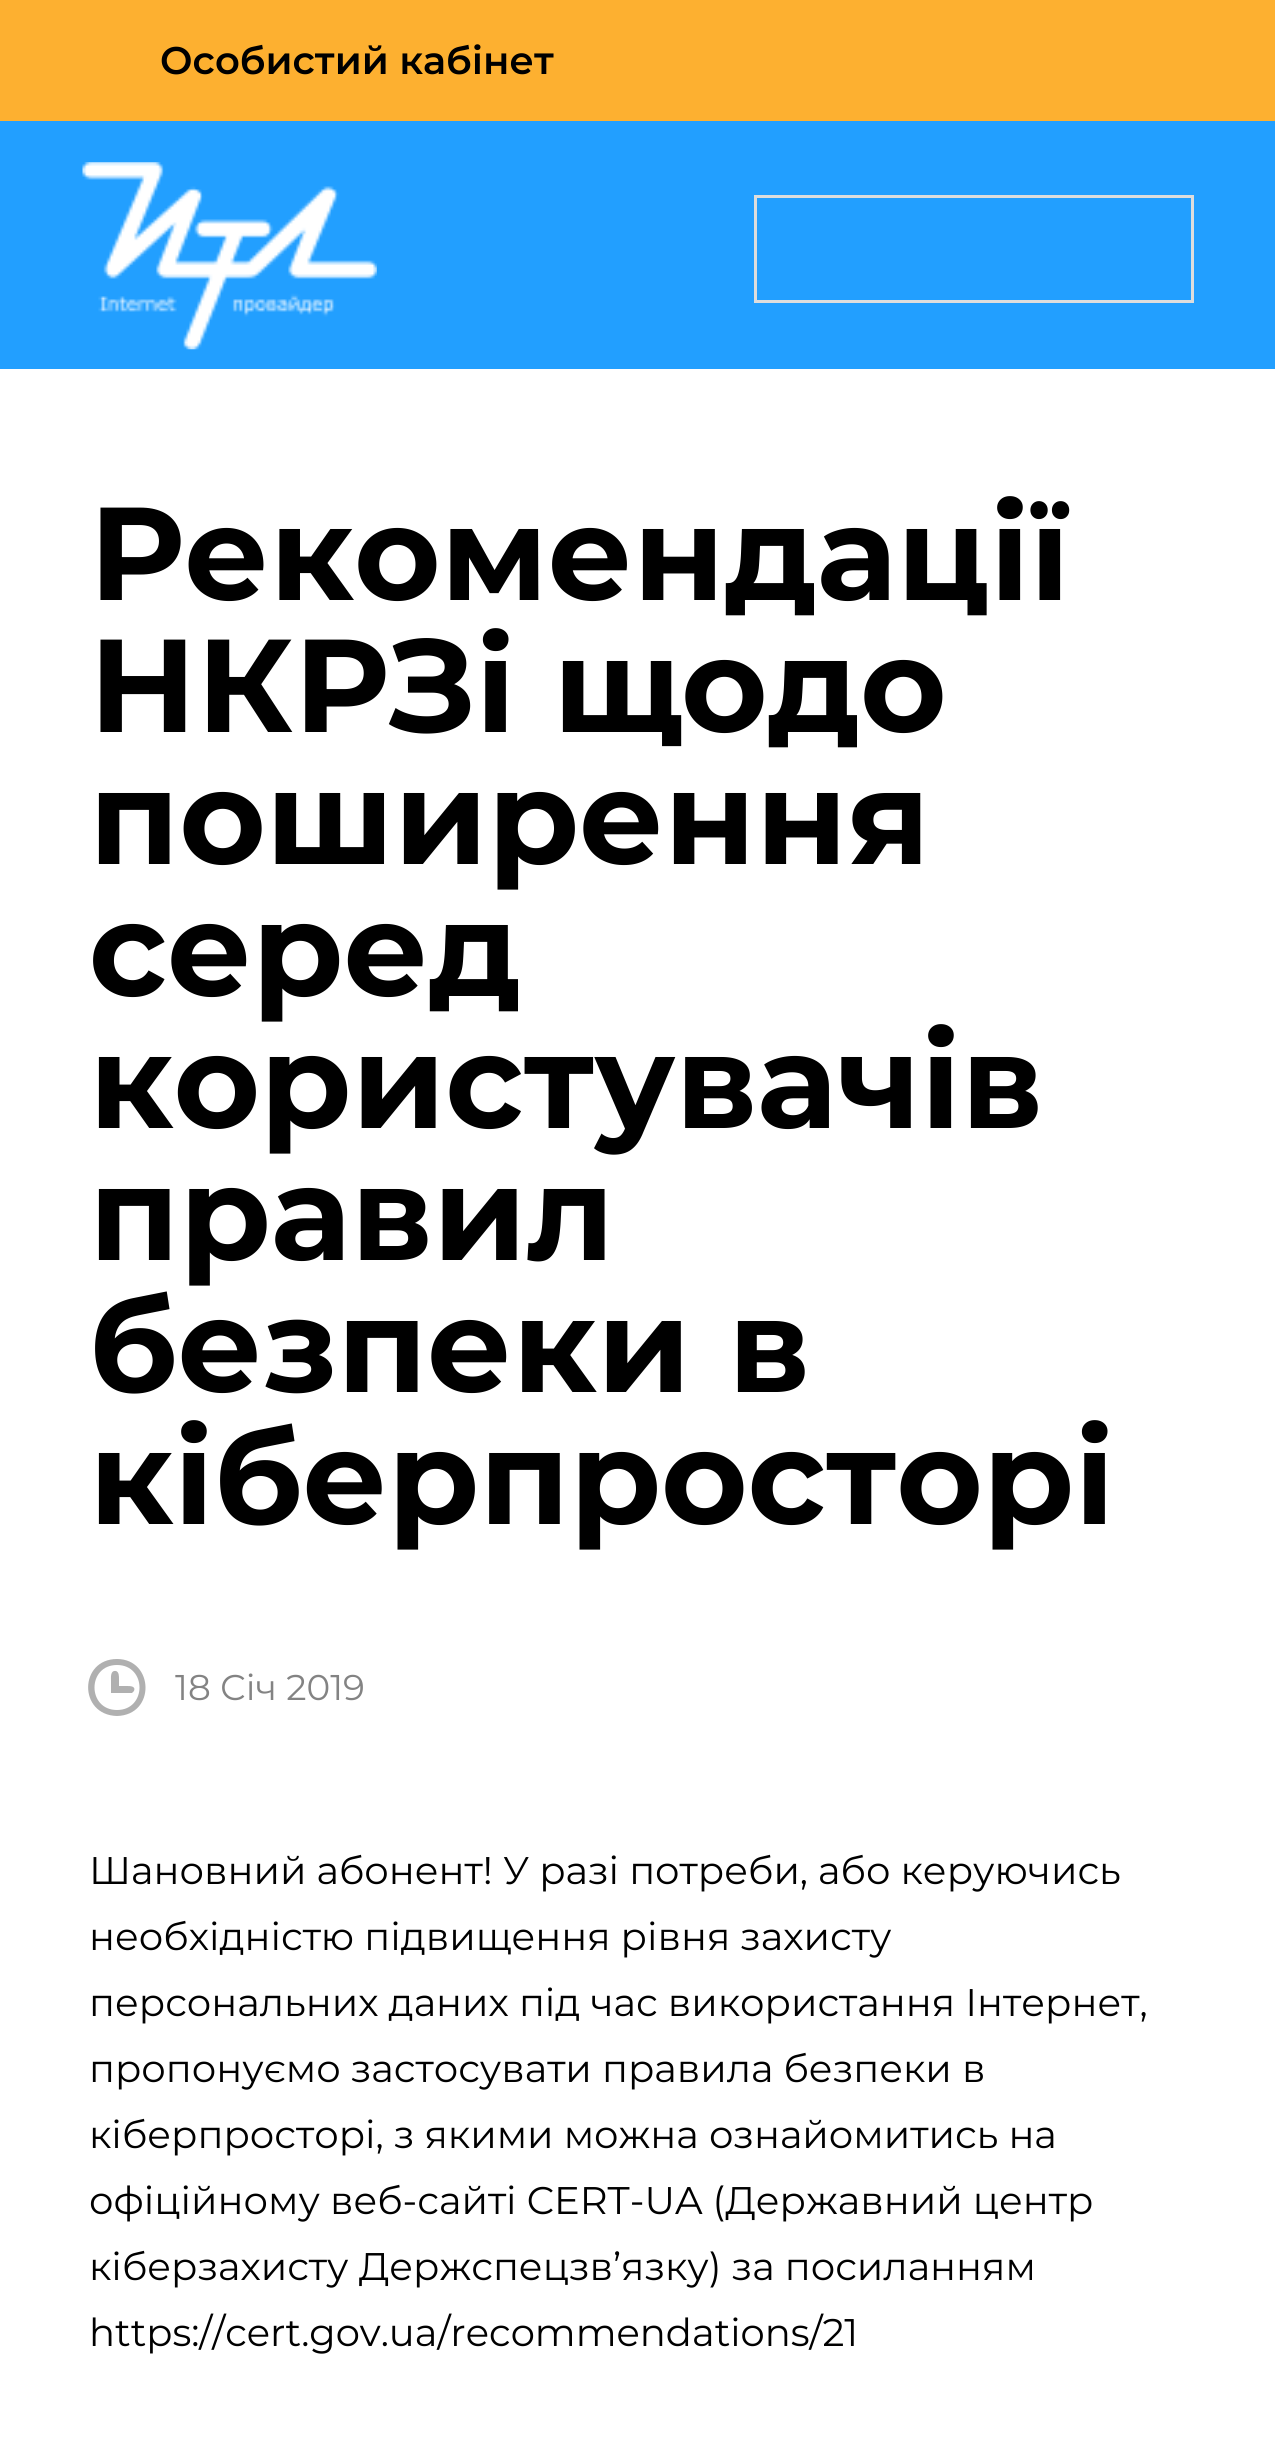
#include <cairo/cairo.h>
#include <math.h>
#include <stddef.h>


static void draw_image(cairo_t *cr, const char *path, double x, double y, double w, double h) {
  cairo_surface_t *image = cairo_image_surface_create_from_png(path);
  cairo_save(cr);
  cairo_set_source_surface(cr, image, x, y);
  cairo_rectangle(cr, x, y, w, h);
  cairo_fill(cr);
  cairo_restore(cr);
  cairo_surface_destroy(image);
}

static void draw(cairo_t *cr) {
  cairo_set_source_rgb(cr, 1, 1, 1);
  cairo_paint(cr);
  cairo_set_source_rgb(cr, 253 / 255.0, 176 / 255.0, 48 / 255.0);
  cairo_rectangle(cr, 0, 0, 1275, 121);
  cairo_fill(cr);
  cairo_set_source_rgb(cr, 34 / 255.0, 159 / 255.0, 1);
  cairo_rectangle(cr, 0, 121, 1275, 248);
  cairo_fill(cr);
  draw_image(cr, "images/1.png", 82, 162, 295, 188);
  cairo_rectangle(cr, 755.5, 196.5, 437, 105);
  cairo_set_source_rgb(cr, 221 / 255.0, 221 / 255.0, 221 / 255.0);
  cairo_set_line_width(cr, 3);
  cairo_stroke(cr);
  cairo_set_source_rgb(cr, 176 / 255.0, 176 / 255.0, 176 / 255.0);
  cairo_new_path(cr);
  cairo_move_to(cr, 117, 1716);
  cairo_curve_to(cr, 78, 1715, 79, 1659, 117, 1659);
  cairo_curve_to(cr, 154, 1659, 156, 1715, 117, 1716);
  cairo_close_path(cr);
  cairo_move_to(cr, 117, 1665);
  cairo_curve_to(cr, 87, 1665, 87, 1710, 117, 1710);
  cairo_curve_to(cr, 147, 1710, 147, 1665, 117, 1665);
  cairo_close_path(cr);
  cairo_move_to(cr, 131, 1693);
  cairo_line_to(cr, 111, 1693);
  cairo_line_to(cr, 111, 1681);
  cairo_curve_to(cr, 111, 1678, 110, 1670, 116, 1671);
  cairo_curve_to(cr, 119, 1672, 119, 1676, 119, 1679);
  cairo_line_to(cr, 119, 1686);
  cairo_line_to(cr, 127, 1686);
  cairo_curve_to(cr, 130, 1686, 136, 1686, 134, 1691);
  cairo_line_to(cr, 132, 1693);
  cairo_close_path(cr);
  cairo_fill(cr);
  cairo_select_font_face(cr, "Montserrat SemiBold", CAIRO_FONT_SLANT_NORMAL, CAIRO_FONT_WEIGHT_NORMAL);
  cairo_set_font_size(cr, 38.5);
  cairo_set_source_rgb(cr, 0, 0, 0);
  cairo_move_to(cr, 160, 74);
  cairo_show_text(cr, "Особистий кабінет");
  cairo_select_font_face(cr, "Montserrat", CAIRO_FONT_SLANT_NORMAL, CAIRO_FONT_WEIGHT_BOLD);
  cairo_set_font_size(cr, 132);
  cairo_move_to(cr, 89, 600);
  cairo_show_text(cr, "Рекомендації");
  cairo_move_to(cr, 89, 732);
  cairo_show_text(cr, "НКРЗі щодо");
  cairo_move_to(cr, 89, 864);
  cairo_show_text(cr, "поширення");
  cairo_move_to(cr, 89, 996);
  cairo_show_text(cr, "серед");
  cairo_move_to(cr, 89, 1128);
  cairo_show_text(cr, "користувачів");
  cairo_move_to(cr, 89, 1260);
  cairo_show_text(cr, "правил");
  cairo_move_to(cr, 89, 1392);
  cairo_show_text(cr, "безпеки в");
  cairo_move_to(cr, 89, 1524);
  cairo_show_text(cr, "кіберпросторі");
  cairo_select_font_face(cr, "Montserrat", CAIRO_FONT_SLANT_NORMAL, CAIRO_FONT_WEIGHT_NORMAL);
  cairo_set_font_size(cr, 35.75);
  cairo_set_source_rgb(cr, 131 / 255.0, 131 / 255.0, 131 / 255.0);
  cairo_move_to(cr, 175, 1700);
  cairo_show_text(cr, "18 Січ 2019");
  cairo_set_font_size(cr, 38.5);
  cairo_set_source_rgb(cr, 0, 0, 0);
  cairo_move_to(cr, 89, 1884);
  cairo_show_text(cr, "Шановний абонент! У разі потреби, або керуючись");
  cairo_move_to(cr, 89, 1950);
  cairo_show_text(cr, "необхідністю підвищення рівня захисту");
  cairo_move_to(cr, 89, 2016);
  cairo_show_text(cr, "персональних даних під час використання Інтернет,");
  cairo_move_to(cr, 89, 2082);
  cairo_show_text(cr, "пропонуємо застосувати правила безпеки в");
  cairo_move_to(cr, 89, 2148);
  cairo_show_text(cr, "кіберпросторі, з якими можна ознайомитись на");
  cairo_move_to(cr, 89, 2214);
  cairo_show_text(cr, "офіційному веб-сайті CERT-UA (Державний центр");
  cairo_move_to(cr, 89, 2280);
  cairo_show_text(cr, "кіберзахисту Держспецзв’язку) за посиланням");
  cairo_move_to(cr, 89, 2346);
  cairo_show_text(cr, "https://cert.gov.ua/recommendations/21");
}

int main(void) {
  cairo_surface_t *surface = cairo_image_surface_create(CAIRO_FORMAT_RGB24, 1275, 2443);
  cairo_t *cr = cairo_create(surface);
  cairo_font_options_t *options = cairo_font_options_create();
  cairo_font_options_set_hint_metrics(options, CAIRO_HINT_METRICS_OFF);
  cairo_font_options_set_hint_style(options, CAIRO_HINT_STYLE_NONE);
  cairo_set_font_options(cr, options);
  cairo_set_miter_limit(cr, 4);
  draw(cr);
  cairo_surface_write_to_png(surface, "out.png");
  cairo_font_options_destroy(options);
  cairo_destroy(cr);
  cairo_surface_destroy(surface);
  return 0;
}
